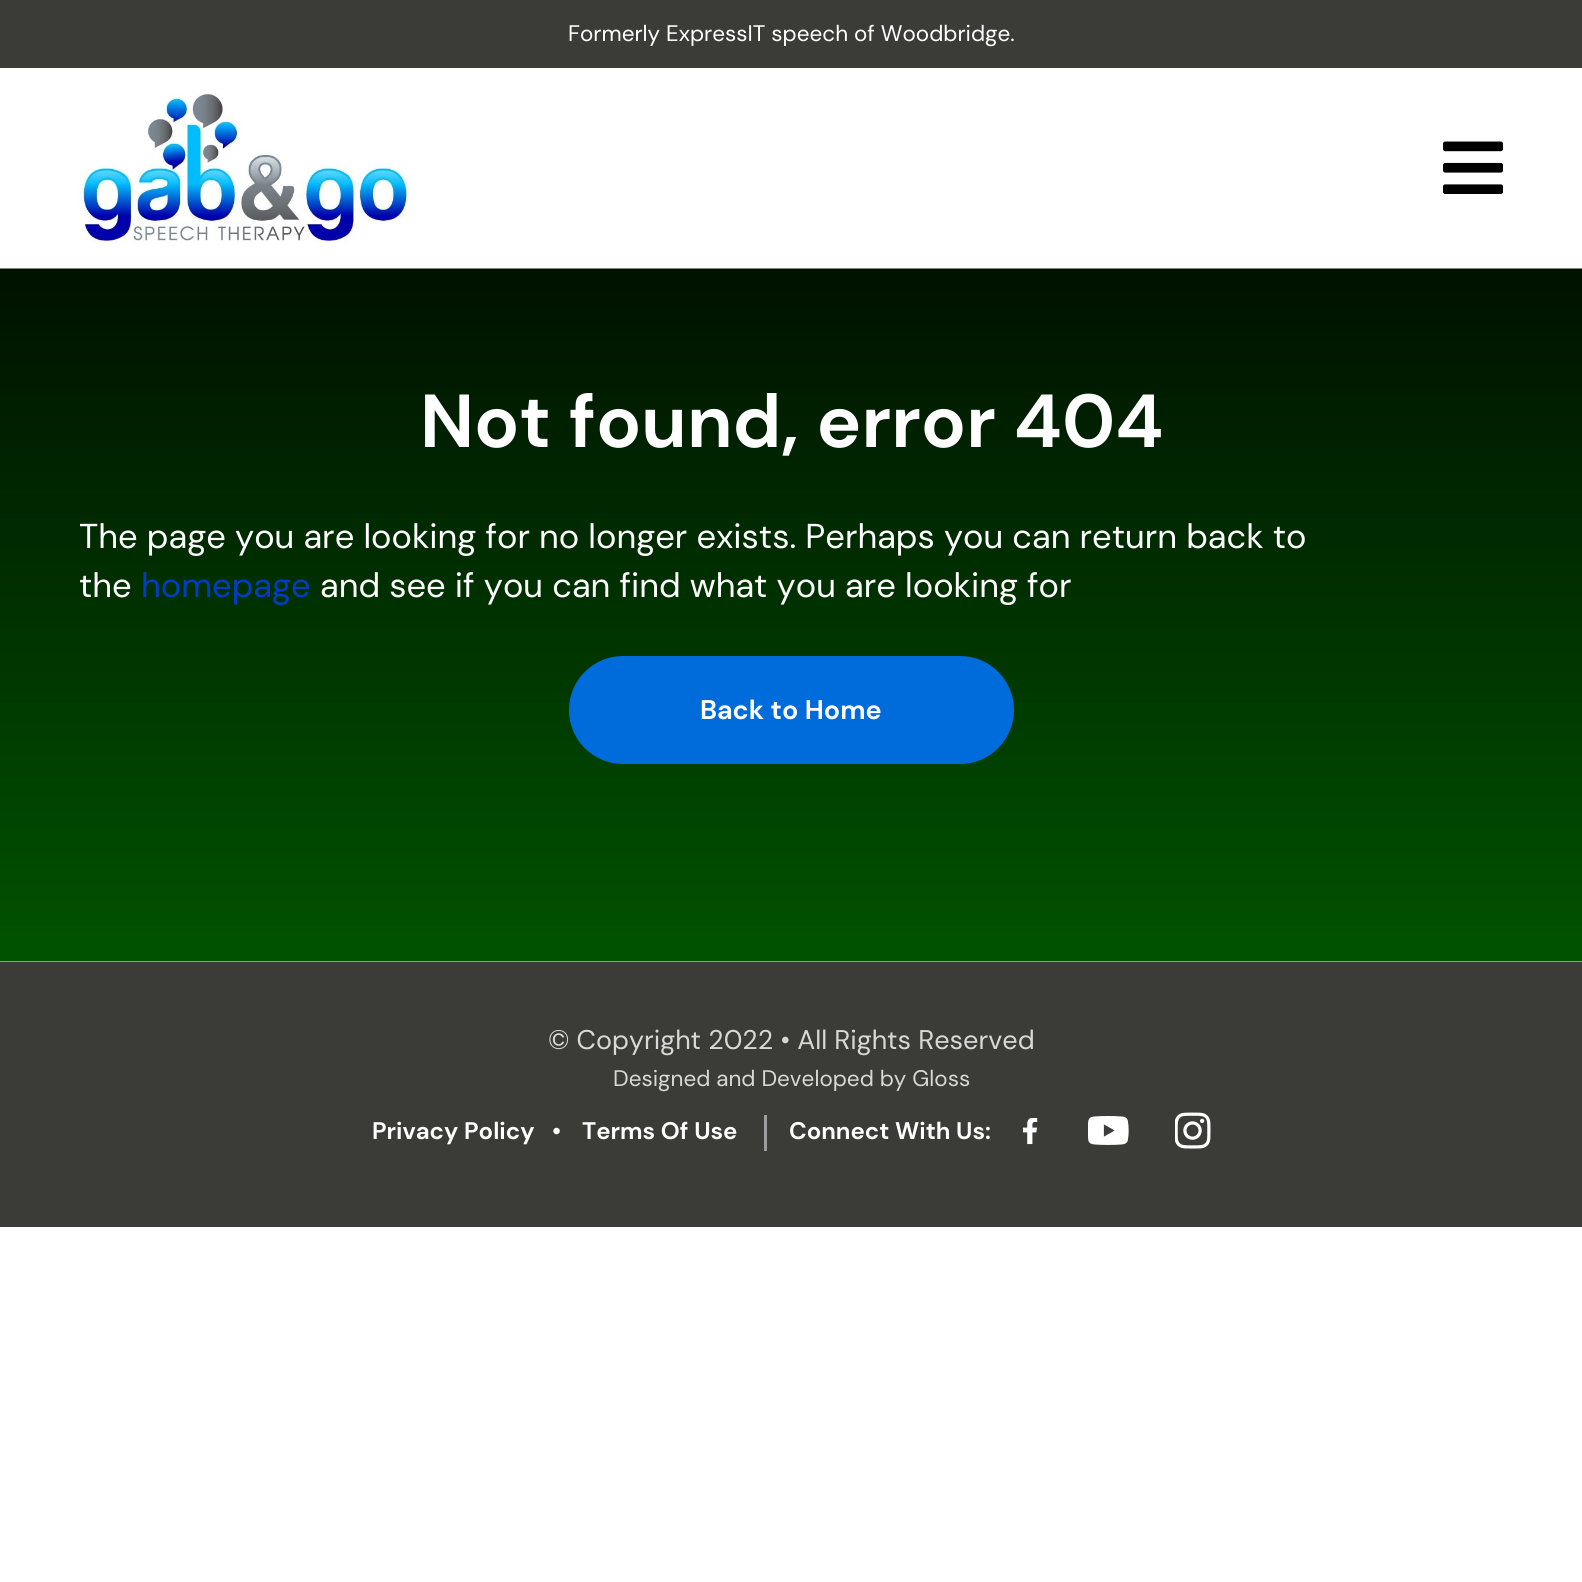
#include <cairo.h>
#include <math.h>
#include <stddef.h>

typedef struct { const char *family; double size; int italic, bold; unsigned color; } style_t;
static cairo_t *ctx;

static void ink(unsigned color) {
    cairo_set_source_rgb(ctx, (color >> 16) / 255.0, (color >> 8 & 255) / 255.0, (color & 255) / 255.0);
}

static void write(double x, double y, const char *s, const style_t *st) {
    cairo_select_font_face(ctx, st->family, st->italic ? CAIRO_FONT_SLANT_ITALIC : CAIRO_FONT_SLANT_NORMAL,
        st->bold ? CAIRO_FONT_WEIGHT_BOLD : CAIRO_FONT_WEIGHT_NORMAL);
    cairo_set_font_size(ctx, st->size);
    ink(st->color);
    cairo_move_to(ctx, x, y);
    cairo_show_text(ctx, s);
}

static void block(double x, double y, double w, double h, unsigned color) {
    ink(color);
    cairo_rectangle(ctx, x, y, w, h);
    cairo_fill(ctx);
}

static void round_path(double x, double y, double w, double h, double r) {
    cairo_new_sub_path(ctx);
    cairo_arc(ctx, x + w - r, y + h - r, r, 0, M_PI / 2);
    cairo_arc(ctx, x + r, y + h - r, r, M_PI / 2, M_PI);
    cairo_arc(ctx, x + r, y + r, r, M_PI, 1.5 * M_PI);
    cairo_arc(ctx, x + w - r, y + r, r, 1.5 * M_PI, 2 * M_PI);
    cairo_close_path(ctx);
}

static void paste(const char *path, double x, double y, double w, double h) {
    cairo_surface_t *image = cairo_image_surface_create_from_png(path);
    cairo_save(ctx);
    cairo_set_source_surface(ctx, image, x, y);
    cairo_rectangle(ctx, x, y, w, h);
    cairo_fill(ctx);
    cairo_restore(ctx);
    cairo_surface_destroy(image);
}

static const style_t s1 = {"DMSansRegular", 22.5, 0, 0, 0xffffff};
static const style_t s2 = {"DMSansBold", 75, 0, 1, 0xffffff};
static const style_t s3 = {"DMSansRegular", 34.5, 0, 0, 0xffffff};
static const style_t s4 = {"DMSansRegular", 34.5, 0, 0, 0x003dc6};
static const style_t s5 = {"DMSansBold", 27, 0, 1, 0xffffff};
static const style_t s6 = {"DMSansRegular", 27, 0, 0, 0xd8d8d7};
static const style_t s7 = {"DMSansRegular", 22.5, 0, 0, 0xd8d8d7};
static const style_t s8 = {"DMSansBold", 24, 0, 1, 0xffffff};

int main(void) {
    cairo_surface_t *surface = cairo_image_surface_create(CAIRO_FORMAT_RGB24, 1582, 1582);
    ctx = cairo_create(surface);
    cairo_font_options_t *options = cairo_font_options_create();
    cairo_font_options_set_hint_metrics(options, CAIRO_HINT_METRICS_OFF);
    cairo_font_options_set_hint_style(options, CAIRO_HINT_STYLE_NONE);
    cairo_set_font_options(ctx, options);
    cairo_set_miter_limit(ctx, 4);
    ink(0xffffff);
    cairo_paint(ctx);
    block(0, 0, 1582, 68, 0x3b3c37);
    write(568, 41, "Formerly ExpressIT speech of Woodbridge.", &s1);
    paste("pic1.png", 79, 92, 331, 151);
    paste("pic2.png", 1443, 141, 60, 53);
    paste("pic3.png", 0, 268, 1582, 694);
    write(420, 447, "Not found, error 404", &s2);
    write(79, 548, "The page you are looking for no longer exists. Perhaps you can return back to", &s3);
    write(79, 597, "the", &s3);
    write(141, 597, "homepage", &s4);
    write(320, 597, "and see if you can find what you are looking for", &s3);
    ink(0x006cdb);
    round_path(569, 656, 445, 108, 54);
    cairo_fill(ctx);
    write(700, 719, "Back to Home", &s5);
    block(0, 962, 1582, 265, 0x3b3c37);
    write(548, 1049, "© Copyright 2022 • All Rights Reserved", &s6);
    write(613, 1086, "Designed and Developed by Gloss", &s7);
    write(372, 1139, "Privacy Policy", &s8);
    write(552, 1139, "•", &s8);
    write(582, 1139, "Terms Of Use", &s8);
    block(764, 1115, 3, 36, 0x9d9d9d);
    write(789, 1139, "Connect With Us:", &s8);
    paste("pic4.png", 1023, 1118, 15, 27);
    paste("pic5.png", 1088, 1116, 41, 29);
    paste("pic6.png", 1175, 1112, 36, 37);
    cairo_surface_write_to_png(surface, "screenshot.png");
    cairo_font_options_destroy(options);
    cairo_destroy(ctx);
    cairo_surface_destroy(surface);
    return 0;
}
